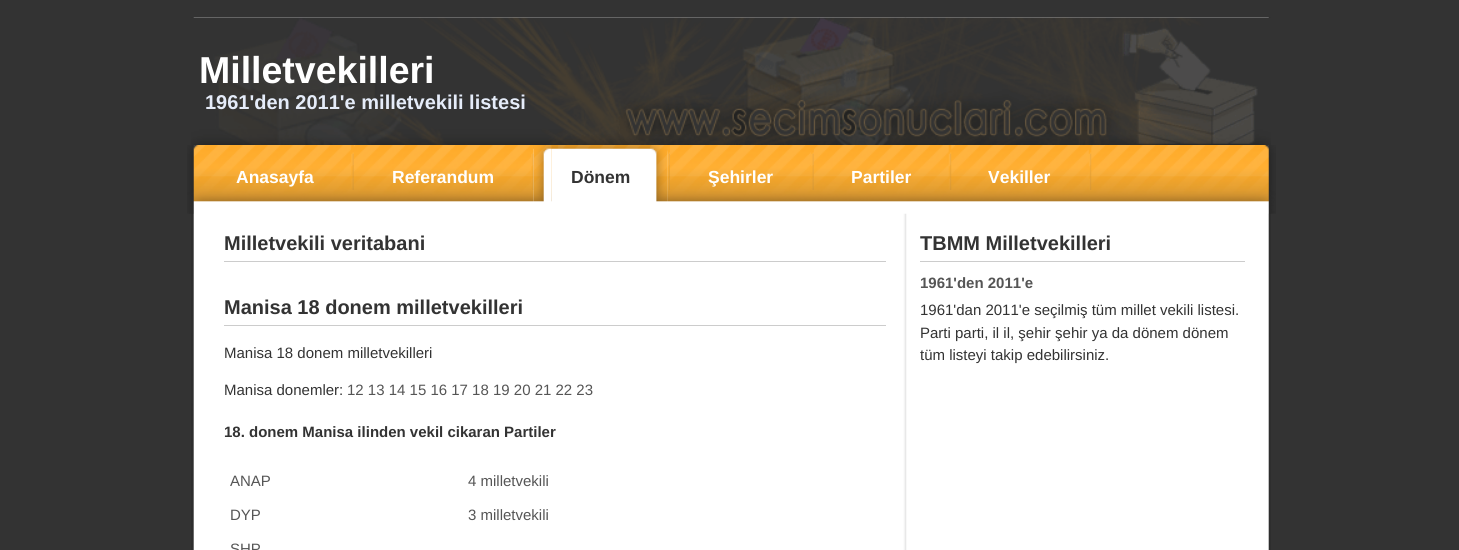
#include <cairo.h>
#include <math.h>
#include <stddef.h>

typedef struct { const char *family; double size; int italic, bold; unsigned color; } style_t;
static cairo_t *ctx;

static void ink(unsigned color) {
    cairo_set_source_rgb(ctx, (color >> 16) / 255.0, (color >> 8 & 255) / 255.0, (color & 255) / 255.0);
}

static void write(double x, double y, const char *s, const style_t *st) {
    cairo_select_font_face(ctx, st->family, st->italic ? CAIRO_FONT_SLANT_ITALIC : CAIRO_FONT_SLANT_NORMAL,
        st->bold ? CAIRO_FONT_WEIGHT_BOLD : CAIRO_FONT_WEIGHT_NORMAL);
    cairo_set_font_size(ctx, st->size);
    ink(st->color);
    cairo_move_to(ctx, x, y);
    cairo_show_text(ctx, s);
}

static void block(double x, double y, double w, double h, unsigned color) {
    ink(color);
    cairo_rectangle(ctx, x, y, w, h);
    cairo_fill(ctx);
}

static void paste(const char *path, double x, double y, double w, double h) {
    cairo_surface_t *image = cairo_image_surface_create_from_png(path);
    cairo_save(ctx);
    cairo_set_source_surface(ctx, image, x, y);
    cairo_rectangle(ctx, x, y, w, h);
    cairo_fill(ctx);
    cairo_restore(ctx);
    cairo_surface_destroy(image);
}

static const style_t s1 = {"Liberation Sans", 37.5, 0, 1, 0xffffff};
static const style_t s2 = {"Liberation Sans", 20, 0, 1, 0xe5ecf9};
static const style_t s3 = {"Liberation Sans", 17.5, 0, 1, 0xffffff};
static const style_t s4 = {"Liberation Sans", 17.5, 0, 1, 0x333333};
static const style_t s5 = {"Liberation Sans", 20, 0, 1, 0x333333};
static const style_t s6 = {"Liberation Sans", 15, 0, 0, 0x333333};
static const style_t s7 = {"Liberation Sans", 15, 0, 0, 0x555555};
static const style_t s8 = {"Liberation Sans", 15, 0, 1, 0x333333};
static const style_t s9 = {"Liberation Sans", 15, 0, 1, 0x555555};

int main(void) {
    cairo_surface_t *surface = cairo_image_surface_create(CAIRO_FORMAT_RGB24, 1459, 550);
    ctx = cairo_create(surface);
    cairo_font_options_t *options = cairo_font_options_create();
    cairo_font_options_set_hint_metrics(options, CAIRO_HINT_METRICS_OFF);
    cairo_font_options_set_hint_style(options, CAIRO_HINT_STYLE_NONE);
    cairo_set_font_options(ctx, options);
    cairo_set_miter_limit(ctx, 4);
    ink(0x333333);
    cairo_paint(ctx);
    paste("pic1.png", 191, 17, 1080, 533);
    paste("pic2.png", 191, 17, 1080, 128);
    write(199, 83, "Milletvekilleri", &s1);
    write(205, 109, "1961'den 2011'e milletvekili listesi", &s2);
    paste("pic3.png", 187, 145, 1089, 69);
    write(236, 183, "Anasayfa", &s3);
    paste("pic4.png", 351, 145, 3, 45);
    write(392, 183, "Referandum", &s3);
    paste("pic5.png", 531, 152, 3, 38);
    paste("pic6.png", 533, 145, 135, 57);
    paste("pic7.png", 551, 145, 117, 57);
    write(571, 183, "Dönem", &s4);
    paste("pic8.png", 667, 145, 3, 57);
    write(708, 183, "Şehirler", &s3);
    paste("pic9.png", 811, 149, 3, 41);
    write(851, 183, "Partiler", &s3);
    paste("pic10.png", 948, 145, 4, 45);
    write(988, 183, "Vekiller", &s3);
    paste("pic11.png", 1088, 147, 4, 43);
    block(224, 261, 662, 1, 0xcccccc);
    write(224, 250, "Milletvekili veritabani", &s5);
    block(224, 325, 662, 1, 0xcccccc);
    write(224, 314, "Manisa 18 donem milletvekilleri", &s5);
    write(224, 358, "Manisa 18 donem milletvekilleri", &s6);
    write(224, 395, "Manisa donemler:", &s6);
    write(347, 395, "12 13 14 15 16 17 18 19 20 21 22 23", &s7);
    write(224, 437, "18. donem Manisa ilinden vekil cikaran Partiler", &s8);
    write(230, 486, "ANAP", &s7);
    write(468, 486, "4 milletvekili", &s7);
    write(230, 520, "DYP", &s7);
    write(468, 520, "3 milletvekili", &s7);
    write(230, 554, "SHP", &s7);
    block(920, 261, 325, 1, 0xcccccc);
    write(920, 250, "TBMM Milletvekilleri", &s5);
    write(920, 288, "1961'den 2011'e", &s9);
    write(920, 315, "1961'dan 2011'e seçilmiş tüm millet vekili listesi.", &s6);
    write(920, 338, "Parti parti, il il, şehir şehir ya da dönem dönem", &s6);
    write(920, 360, "tüm listeyi takip edebilirsiniz.", &s6);
    cairo_surface_write_to_png(surface, "screenshot.png");
    cairo_font_options_destroy(options);
    cairo_destroy(ctx);
    cairo_surface_destroy(surface);
    return 0;
}
